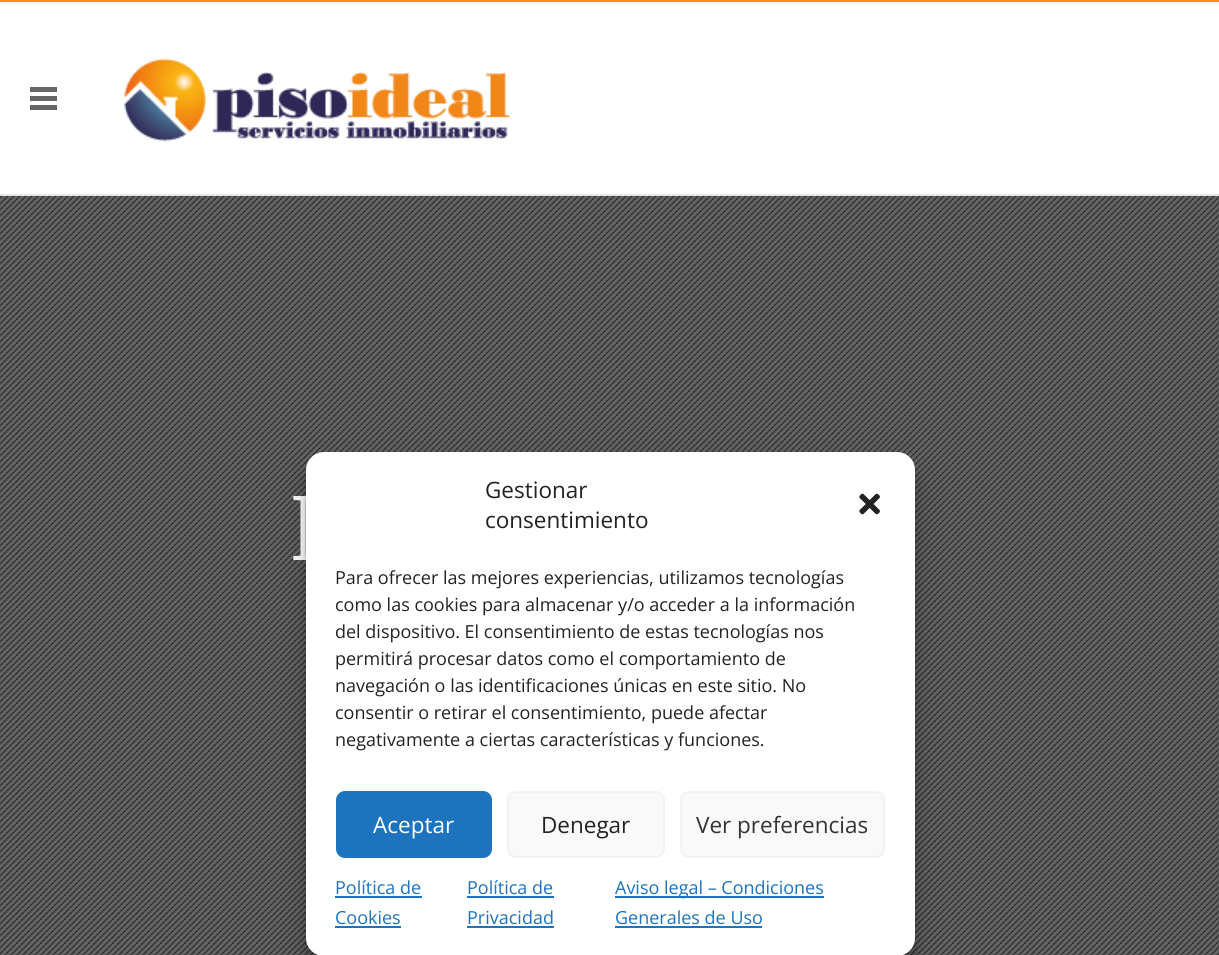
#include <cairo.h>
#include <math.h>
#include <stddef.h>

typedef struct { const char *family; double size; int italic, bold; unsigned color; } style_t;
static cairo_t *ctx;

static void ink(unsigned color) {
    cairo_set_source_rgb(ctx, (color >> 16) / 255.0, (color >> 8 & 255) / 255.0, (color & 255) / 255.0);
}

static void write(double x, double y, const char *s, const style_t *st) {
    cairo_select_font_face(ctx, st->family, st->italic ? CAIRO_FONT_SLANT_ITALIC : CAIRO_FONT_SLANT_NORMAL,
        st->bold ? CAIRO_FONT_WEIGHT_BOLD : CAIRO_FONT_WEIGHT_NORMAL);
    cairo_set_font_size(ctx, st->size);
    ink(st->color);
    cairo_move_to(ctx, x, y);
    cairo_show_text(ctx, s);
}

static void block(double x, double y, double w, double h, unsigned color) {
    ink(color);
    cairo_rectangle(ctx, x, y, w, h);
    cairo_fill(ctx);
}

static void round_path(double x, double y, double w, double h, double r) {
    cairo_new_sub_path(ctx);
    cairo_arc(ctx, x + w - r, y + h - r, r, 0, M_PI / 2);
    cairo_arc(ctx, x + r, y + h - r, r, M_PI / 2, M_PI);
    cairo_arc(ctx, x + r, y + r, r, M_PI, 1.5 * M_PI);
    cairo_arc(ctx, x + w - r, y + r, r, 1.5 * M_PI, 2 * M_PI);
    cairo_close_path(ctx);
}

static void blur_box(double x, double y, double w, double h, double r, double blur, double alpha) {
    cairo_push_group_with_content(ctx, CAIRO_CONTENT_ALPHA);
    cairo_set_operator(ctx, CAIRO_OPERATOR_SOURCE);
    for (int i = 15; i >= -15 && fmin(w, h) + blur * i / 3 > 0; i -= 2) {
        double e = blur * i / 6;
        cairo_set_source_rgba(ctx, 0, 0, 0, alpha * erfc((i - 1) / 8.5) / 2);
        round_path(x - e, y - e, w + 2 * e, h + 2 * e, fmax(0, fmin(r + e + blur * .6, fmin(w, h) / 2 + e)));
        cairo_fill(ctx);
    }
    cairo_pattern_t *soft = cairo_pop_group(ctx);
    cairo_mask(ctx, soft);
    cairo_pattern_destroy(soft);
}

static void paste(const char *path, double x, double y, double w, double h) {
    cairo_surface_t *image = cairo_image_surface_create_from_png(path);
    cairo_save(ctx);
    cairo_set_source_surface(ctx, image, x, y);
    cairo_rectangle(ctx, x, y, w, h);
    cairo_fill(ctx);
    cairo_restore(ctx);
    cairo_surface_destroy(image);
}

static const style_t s1 = {"Roboto Slab Light", 90, 0, 0, 0xffffff};
static const style_t s2 = {"Open Sans", 22.5, 0, 0, 0x222222};
static const style_t s3 = {"Open Sans", 18, 0, 0, 0x222222};
static const style_t s4 = {"Open Sans", 22.5, 0, 0, 0xffffff};
static const style_t s5 = {"Open Sans", 22.5, 0, 0, 0x333333};
static const style_t s6 = {"Open Sans", 18, 0, 0, 0x1e73be};

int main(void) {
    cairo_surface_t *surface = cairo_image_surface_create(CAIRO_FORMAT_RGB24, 1219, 955);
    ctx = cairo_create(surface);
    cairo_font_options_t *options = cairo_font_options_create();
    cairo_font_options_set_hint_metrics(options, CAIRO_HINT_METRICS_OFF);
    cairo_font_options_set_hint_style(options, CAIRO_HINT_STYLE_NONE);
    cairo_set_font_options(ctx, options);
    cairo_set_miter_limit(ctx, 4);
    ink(0xffffff);
    cairo_paint(ctx);
    block(0, 196, 1219, 759, 0x666666);
    block(0, 0, 1219, 2, 0xf39412);
    block(0, 194, 1219, 2, 0xe6e6e6);
    block(30, 87, 27, 5, 0x666666);
    block(30, 96, 27, 5, 0x666666);
    block(30, 105, 27, 5, 0x666666);
    paste("pic1.png", 124, 58, 387, 84);
    paste("pic2.png", 0, 196, 1219, 759);
    write(290, 560, "L", &s1);
    ink(0x000000);
    blur_box(306, 461, 609, 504, 18, 4.5, 0.23);
    blur_box(306, 467, 609, 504, 18, 15, 0.19);
    ink(0xffffff);
    round_path(306, 452, 609, 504, 18);
    cairo_fill(ctx);
    write(485, 498, "Gestionar", &s2);
    write(485, 528, "consentimiento", &s2);
    paste("pic3.png", 859, 493, 21, 22);
    write(335, 584, "Para ofrecer las mejores experiencias, utilizamos tecnologías", &s3);
    write(335, 611, "como las cookies para almacenar y/o acceder a la información", &s3);
    write(335, 638, "del dispositivo. El consentimiento de estas tecnologías nos", &s3);
    write(335, 665, "permitirá procesar datos como el comportamiento de", &s3);
    write(335, 692, "navegación o las identificaciones únicas en este sitio. No", &s3);
    write(335, 719, "consentir o retirar el consentimiento, puede afectar", &s3);
    write(335, 746, "negativamente a ciertas características y funciones.", &s3);
    ink(0x1e73be);
    round_path(337, 792, 154, 65, 8);
    cairo_fill_preserve(ctx);
    cairo_stroke(ctx);
    write(373, 833, "Aceptar", &s4);
    ink(0xf9f9f9);
    round_path(508, 792, 156, 65, 8);
    cairo_fill_preserve(ctx);
    ink(0xf2f2f2);
    cairo_stroke(ctx);
    write(541, 833, "Denegar", &s2);
    ink(0xf9f9f9);
    round_path(681, 792, 203, 65, 8);
    cairo_fill_preserve(ctx);
    ink(0xf2f2f2);
    cairo_stroke(ctx);
    write(696, 833, "Ver preferencias", &s5);
    write(335, 894, "Política de", &s6);
    block(335, 896, 87, 2, 0x1e73be);
    write(335, 924, "Cookies", &s6);
    block(335, 926, 66, 2, 0x1e73be);
    write(467, 894, "Política de", &s6);
    block(467, 896, 87, 2, 0x1e73be);
    write(467, 924, "Privacidad", &s6);
    block(467, 926, 87, 2, 0x1e73be);
    block(615, 896, 209, 2, 0x1e73be);
    write(615, 894, "Aviso legal – Condiciones", &s6);
    write(615, 924, "Generales de Uso", &s6);
    block(615, 926, 147, 2, 0x1e73be);
    cairo_surface_write_to_png(surface, "screenshot.png");
    cairo_font_options_destroy(options);
    cairo_destroy(ctx);
    cairo_surface_destroy(surface);
    return 0;
}
